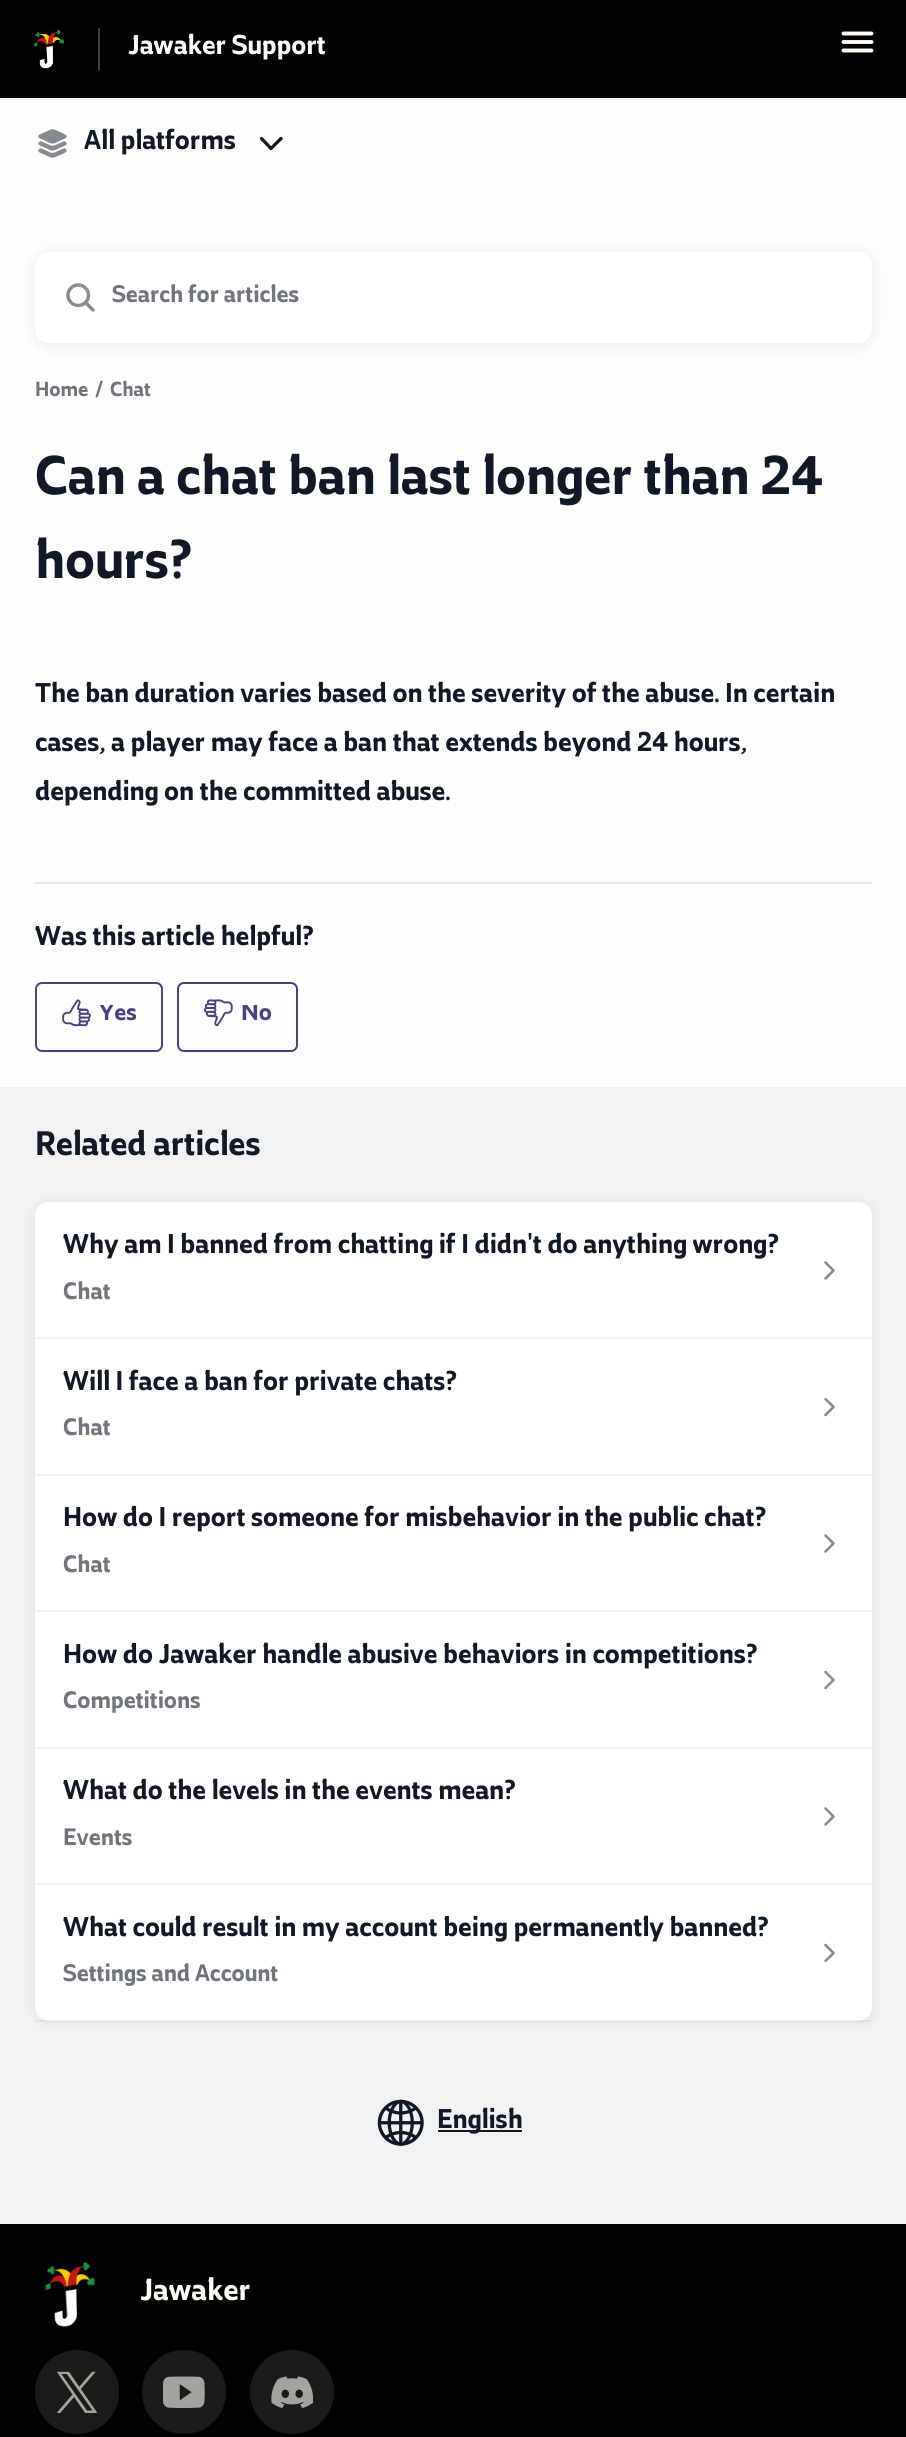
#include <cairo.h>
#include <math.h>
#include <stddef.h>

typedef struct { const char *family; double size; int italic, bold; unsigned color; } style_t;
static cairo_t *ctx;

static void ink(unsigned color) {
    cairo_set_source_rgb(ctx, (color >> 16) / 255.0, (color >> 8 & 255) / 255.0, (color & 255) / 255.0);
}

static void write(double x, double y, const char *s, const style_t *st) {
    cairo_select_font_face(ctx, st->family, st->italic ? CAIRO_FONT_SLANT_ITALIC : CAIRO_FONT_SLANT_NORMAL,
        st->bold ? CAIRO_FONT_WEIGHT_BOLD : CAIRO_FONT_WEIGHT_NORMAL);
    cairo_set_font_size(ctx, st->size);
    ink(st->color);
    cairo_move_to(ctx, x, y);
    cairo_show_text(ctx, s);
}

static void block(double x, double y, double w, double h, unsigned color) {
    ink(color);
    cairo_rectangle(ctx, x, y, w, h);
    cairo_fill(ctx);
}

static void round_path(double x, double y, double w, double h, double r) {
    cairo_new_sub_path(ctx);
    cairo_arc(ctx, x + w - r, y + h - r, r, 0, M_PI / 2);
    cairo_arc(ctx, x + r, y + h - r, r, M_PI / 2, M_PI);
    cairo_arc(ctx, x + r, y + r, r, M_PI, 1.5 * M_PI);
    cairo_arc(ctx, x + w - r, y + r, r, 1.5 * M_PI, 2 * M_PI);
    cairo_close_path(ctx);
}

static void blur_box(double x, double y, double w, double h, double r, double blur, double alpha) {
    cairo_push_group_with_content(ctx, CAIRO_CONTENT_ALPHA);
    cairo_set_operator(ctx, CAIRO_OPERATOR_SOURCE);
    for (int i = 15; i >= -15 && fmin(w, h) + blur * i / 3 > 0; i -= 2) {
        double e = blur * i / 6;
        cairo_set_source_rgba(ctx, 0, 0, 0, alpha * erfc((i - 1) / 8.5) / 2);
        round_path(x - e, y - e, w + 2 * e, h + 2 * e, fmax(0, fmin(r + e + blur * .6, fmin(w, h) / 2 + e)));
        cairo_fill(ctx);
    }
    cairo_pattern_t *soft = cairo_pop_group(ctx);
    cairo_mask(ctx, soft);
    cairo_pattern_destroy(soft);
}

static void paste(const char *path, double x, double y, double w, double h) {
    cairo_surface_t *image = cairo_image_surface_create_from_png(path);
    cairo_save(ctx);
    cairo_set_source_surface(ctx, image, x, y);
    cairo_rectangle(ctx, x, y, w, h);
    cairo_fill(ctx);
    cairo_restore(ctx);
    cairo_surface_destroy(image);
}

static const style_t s1 = {"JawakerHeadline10", 28, 0, 1, 0xfffbf4};
static const style_t s2 = {"JawakerHeadline10", 28, 0, 1, 0x111827};
static const style_t s3 = {"JawakerHeadline10", 24.5, 0, 1, 0x70747d};
static const style_t s4 = {"JawakerHeadline10", 21, 0, 1, 0x70747d};
static const style_t s5 = {"JawakerHeadline10", 56, 0, 1, 0x111827};
static const style_t s6 = {"JawakerHeadline10", 24.5, 0, 1, 0x4f3f80};
static const style_t s7 = {"JawakerHeadline10", 35, 0, 1, 0x111827};
static const style_t s8 = {"JawakerHeadline10", 31.5, 0, 1, 0xfffbf4};

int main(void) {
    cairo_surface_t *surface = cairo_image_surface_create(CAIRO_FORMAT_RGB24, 906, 2437);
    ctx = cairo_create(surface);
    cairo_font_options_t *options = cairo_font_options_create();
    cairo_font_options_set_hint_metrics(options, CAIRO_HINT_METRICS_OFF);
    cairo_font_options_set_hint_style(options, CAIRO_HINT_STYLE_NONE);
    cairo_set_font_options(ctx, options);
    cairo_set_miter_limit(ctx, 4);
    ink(0xfdfdfd);
    cairo_paint(ctx);
    block(0, 0, 906, 98, 0x020202);
    block(98, 28, 2, 42, 0x41403f);
    paste("pic1.png", 34, 29, 30, 40);
    write(128, 54, "Jawaker Support", &s1);
    cairo_new_path(ctx);
    cairo_move_to(ctx, 843.5, 33.5);
    cairo_line_to(ctx, 871.5, 33.5);
    cairo_move_to(ctx, 843.5, 42);
    cairo_line_to(ctx, 871.5, 42);
    cairo_move_to(ctx, 843.5, 50.5);
    cairo_line_to(ctx, 871.5, 50.5);
    cairo_set_line_width(ctx, 3.9);
    cairo_set_line_cap(ctx, CAIRO_LINE_CAP_ROUND);
    cairo_stroke(ctx);
    paste("pic2.png", 38, 129, 29, 29);
    write(84, 149, "All platforms", &s2);
    cairo_new_path(ctx);
    cairo_move_to(ctx, 261.5, 138.5);
    cairo_line_to(ctx, 271, 148.5);
    cairo_line_to(ctx, 281, 138.5);
    cairo_set_line_width(ctx, 3.3);
    cairo_set_line_join(ctx, CAIRO_LINE_JOIN_ROUND);
    cairo_stroke(ctx);
    block(0, 1087, 906, 1137, 0xf0f2f4);
    ink(0x000000);
    blur_box(35, 254, 837, 91, 14, 7, 0.08);
    ink(0xffffff);
    round_path(35, 252, 837, 91, 14);
    cairo_fill(ctx);
    paste("pic3.png", 66, 283, 29, 29);
    write(112, 302, "Search for articles", &s3);
    write(35, 396, "Home", &s4);
    write(95, 396, "/", &s4);
    write(110, 396, "Chat", &s4);
    write(35, 494, "Can a chat ban last longer than 24", &s5);
    write(35, 578, "hours?", &s5);
    block(35, 882, 837, 2, 0xe7e8e9);
    write(35, 702, "The ban duration varies based on the severity of the abuse. In certain", &s2);
    write(35, 751, "cases, a player may face a ban that extends beyond 24 hours,", &s2);
    write(35, 800, "depending on the committed abuse.", &s2);
    write(35, 945, "Was this article helpful?", &s2);
    round_path(36, 983, 126, 68, 6);
    ink(0x4f3f80);
    cairo_set_line_width(ctx, 2);
    cairo_set_line_cap(ctx, CAIRO_LINE_CAP_BUTT);
    cairo_set_line_join(ctx, CAIRO_LINE_JOIN_MITER);
    cairo_stroke(ctx);
    paste("pic4.png", 62, 999, 29, 28);
    cairo_save(ctx);
    cairo_rectangle(ctx, 100, 1005, 37, 24);
    cairo_clip(ctx);
    write(99, 1020, "Yes", &s6);
    cairo_restore(ctx);
    round_path(178, 983, 119, 68, 6);
    cairo_stroke(ctx);
    paste("pic5.png", 204, 999, 29, 28);
    cairo_save(ctx);
    cairo_rectangle(ctx, 242, 1005, 29, 24);
    cairo_clip(ctx);
    write(241, 1020, "No", &s6);
    cairo_restore(ctx);
    write(35, 1155, "Related articles", &s7);
    ink(0x000000);
    blur_box(35, 1204, 837, 819, 14, 7, 0.08);
    ink(0xffffff);
    round_path(35, 1202, 837, 819, 14);
    cairo_fill(ctx);
    block(35, 1337, 837, 2, 0xf3f3f4);
    write(63, 1253, "Why am I banned from chatting if I didn't do anything wrong?", &s2);
    write(63, 1299, "Chat", &s3);
    cairo_new_path(ctx);
    cairo_move_to(ctx, 825.5, 1262.5);
    cairo_line_to(ctx, 833.5, 1270.5);
    cairo_line_to(ctx, 825.5, 1278.5);
    ink(0x888c93);
    cairo_set_line_width(ctx, 2.6);
    cairo_set_line_cap(ctx, CAIRO_LINE_CAP_ROUND);
    cairo_set_line_join(ctx, CAIRO_LINE_JOIN_ROUND);
    cairo_stroke(ctx);
    block(35, 1474, 837, 2, 0xf3f3f4);
    write(63, 1390, "Will I face a ban for private chats?", &s2);
    write(63, 1435, "Chat", &s3);
    cairo_new_path(ctx);
    cairo_move_to(ctx, 825.5, 1399);
    cairo_line_to(ctx, 833.5, 1407);
    cairo_line_to(ctx, 825.5, 1415);
    ink(0x888c93);
    cairo_stroke(ctx);
    block(35, 1610, 837, 2, 0xf3f3f4);
    write(63, 1526, "How do I report someone for misbehavior in the public chat?", &s2);
    write(63, 1572, "Chat", &s3);
    cairo_new_path(ctx);
    cairo_move_to(ctx, 825.5, 1535.5);
    cairo_line_to(ctx, 833.5, 1543.5);
    cairo_line_to(ctx, 825.5, 1551.5);
    ink(0x888c93);
    cairo_stroke(ctx);
    block(35, 1747, 837, 2, 0xf3f3f4);
    write(63, 1663, "How do Jawaker handle abusive behaviors in competitions?", &s2);
    write(63, 1708, "Competitions", &s3);
    cairo_new_path(ctx);
    cairo_move_to(ctx, 825.5, 1672);
    cairo_line_to(ctx, 833.5, 1680);
    cairo_line_to(ctx, 825.5, 1688);
    ink(0x888c93);
    cairo_stroke(ctx);
    block(35, 1883, 837, 2, 0xf3f3f4);
    write(63, 1799, "What do the levels in the events mean?", &s2);
    write(63, 1845, "Events", &s3);
    cairo_new_path(ctx);
    cairo_move_to(ctx, 825.5, 1808.5);
    cairo_line_to(ctx, 833.5, 1816.5);
    cairo_line_to(ctx, 825.5, 1824.5);
    ink(0x888c93);
    cairo_stroke(ctx);
    cairo_set_source_rgba(ctx, 0.067, 0.094, 0.153, 0.05);
    cairo_rectangle(ctx, 35, 2020, 837, 2);
    cairo_fill(ctx);
    write(63, 1936, "What could result in my account being permanently banned?", &s2);
    write(63, 1981, "Settings and Account", &s3);
    cairo_new_path(ctx);
    cairo_move_to(ctx, 825.5, 1945);
    cairo_line_to(ctx, 833.5, 1953);
    cairo_line_to(ctx, 825.5, 1961);
    ink(0x888c93);
    cairo_stroke(ctx);
    paste("pic6.png", 377, 2099, 47, 47);
    block(438, 2130, 84, 2, 0x111827);
    write(437, 2128, "English", &s2);
    block(0, 2224, 906, 213, 0x020202);
    paste("pic7.png", 45, 2262, 50, 65);
    write(140, 2300, "Jawaker", &s8);
    ink(0x1b1b1a);
    cairo_new_path(ctx);
    cairo_arc(ctx, 77, 2392, 42, 0, 2 * M_PI);
    cairo_fill(ctx);
    paste("pic8.png", 57, 2371, 40, 42);
    cairo_arc(ctx, 184, 2392, 42, 0, 2 * M_PI);
    cairo_fill(ctx);
    paste("pic9.png", 163, 2376, 42, 32);
    cairo_arc(ctx, 292, 2392, 42, 0, 2 * M_PI);
    cairo_fill(ctx);
    paste("pic10.png", 271, 2376, 42, 32);
    cairo_surface_write_to_png(surface, "screenshot.png");
    cairo_font_options_destroy(options);
    cairo_destroy(ctx);
    cairo_surface_destroy(surface);
    return 0;
}
